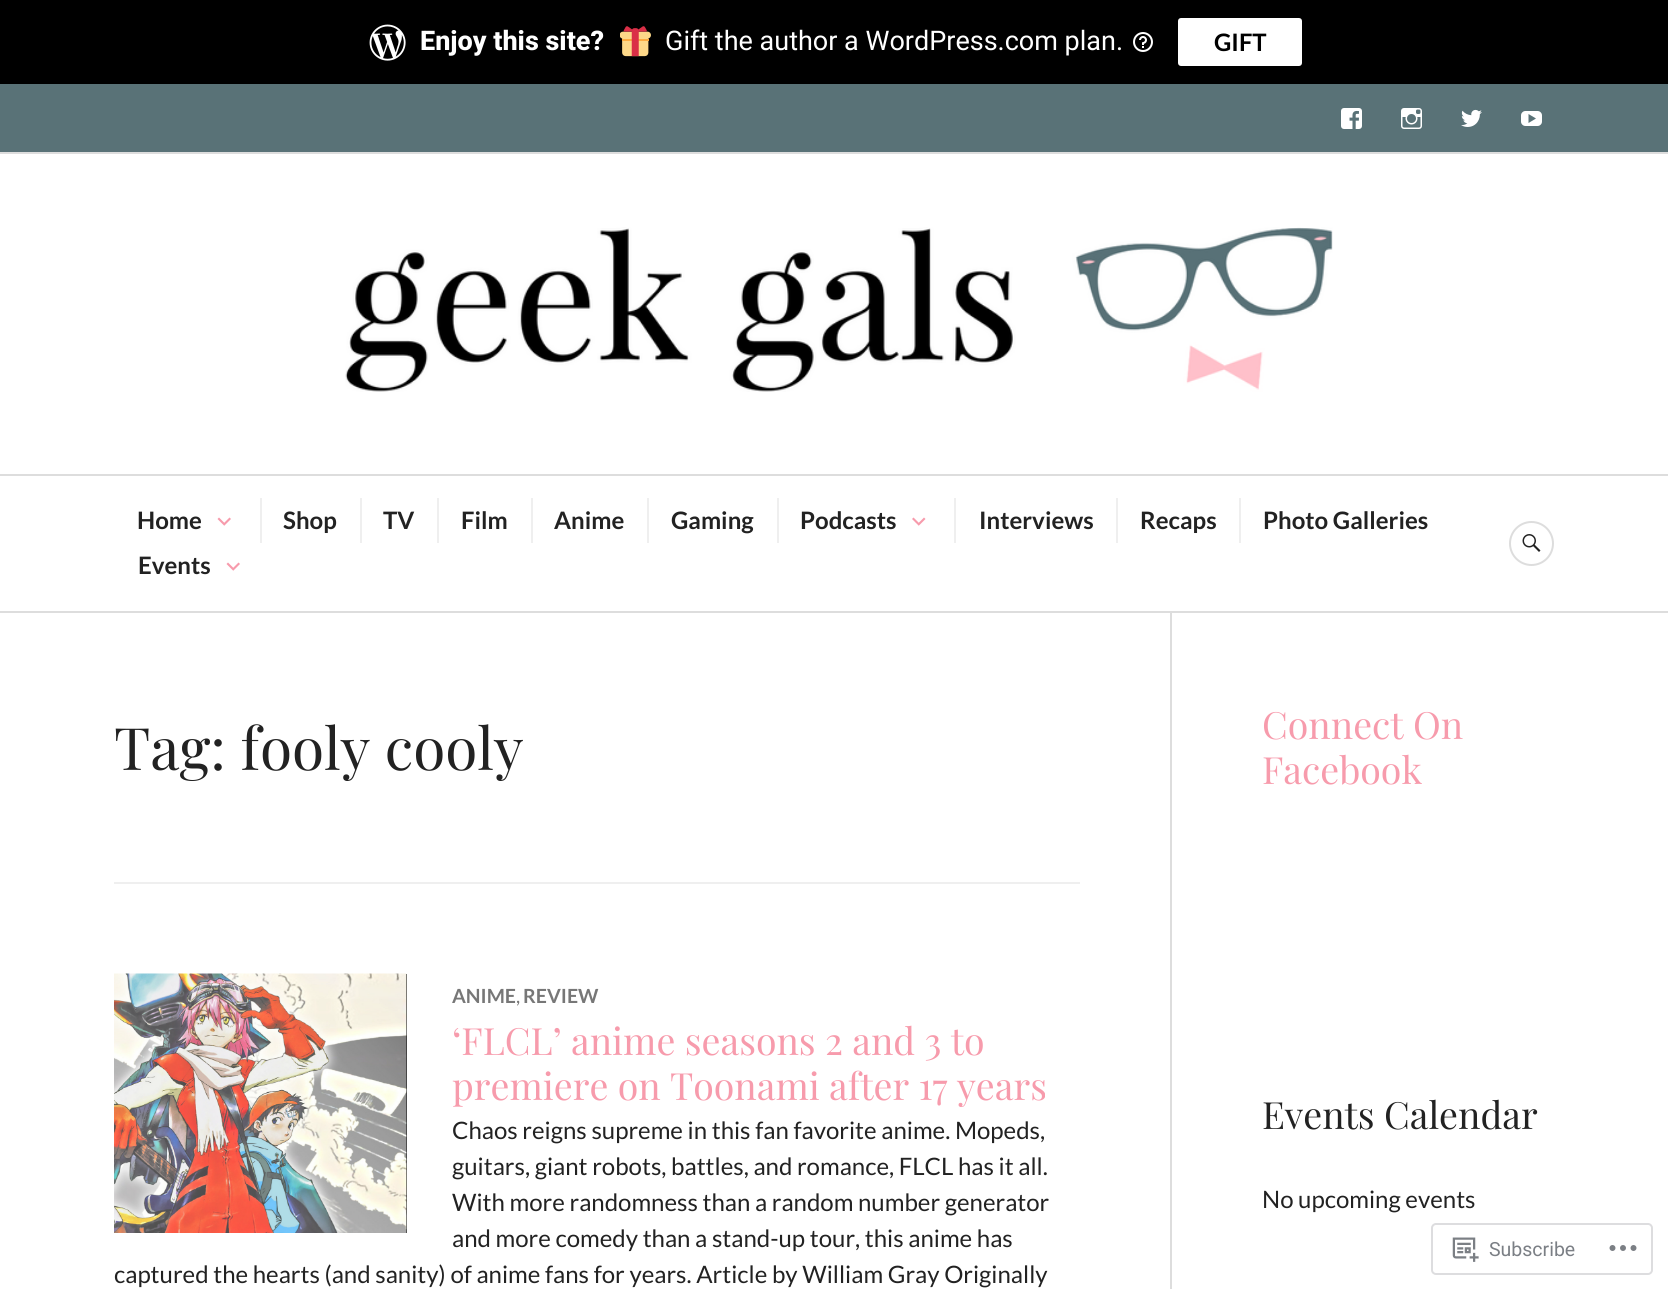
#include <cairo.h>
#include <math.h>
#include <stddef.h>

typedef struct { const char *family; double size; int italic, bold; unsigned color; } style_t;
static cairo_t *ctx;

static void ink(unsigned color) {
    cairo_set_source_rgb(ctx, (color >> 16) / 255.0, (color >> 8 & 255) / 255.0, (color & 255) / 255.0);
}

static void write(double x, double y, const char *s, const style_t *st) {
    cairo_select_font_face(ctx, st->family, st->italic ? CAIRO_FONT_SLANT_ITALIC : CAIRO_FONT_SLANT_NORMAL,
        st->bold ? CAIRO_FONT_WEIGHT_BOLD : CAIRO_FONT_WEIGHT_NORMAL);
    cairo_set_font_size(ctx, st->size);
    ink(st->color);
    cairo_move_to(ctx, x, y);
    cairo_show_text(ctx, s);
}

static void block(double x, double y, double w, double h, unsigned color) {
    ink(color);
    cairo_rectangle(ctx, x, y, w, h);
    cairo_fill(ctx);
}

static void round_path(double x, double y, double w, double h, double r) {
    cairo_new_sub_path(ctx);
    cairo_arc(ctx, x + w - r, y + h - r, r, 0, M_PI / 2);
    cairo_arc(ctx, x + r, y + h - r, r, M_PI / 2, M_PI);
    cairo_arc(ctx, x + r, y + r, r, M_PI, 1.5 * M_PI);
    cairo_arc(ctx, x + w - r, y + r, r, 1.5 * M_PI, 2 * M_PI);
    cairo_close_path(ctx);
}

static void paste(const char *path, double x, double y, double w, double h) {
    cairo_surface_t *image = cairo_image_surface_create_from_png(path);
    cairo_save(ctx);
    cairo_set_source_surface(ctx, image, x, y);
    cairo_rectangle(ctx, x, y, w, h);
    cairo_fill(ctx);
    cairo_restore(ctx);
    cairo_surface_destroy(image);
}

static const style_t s1 = {"Roboto ExtraBold", 27, 0, 0, 0xffffff};
static const style_t s2 = {"Roboto", 27, 0, 0, 0xffffff};
static const style_t s3 = {"Lato", 24, 0, 1, 0x000000};
static const style_t s4 = {"Lato", 24, 0, 1, 0x222222};
static const style_t s5 = {"Playfair Display", 58.5, 0, 0, 0x222222};
static const style_t s6 = {"Lato", 19.5, 0, 1, 0x777777};
static const style_t s7 = {"Lato", 19.5, 0, 0, 0x777777};
static const style_t s8 = {"Playfair Display", 37.5, 0, 0, 0xf79bac};
static const style_t s9 = {"Lato", 24, 0, 0, 0x222222};
static const style_t s10 = {"Playfair Display", 37.5, 0, 0, 0x222222};
static const style_t s11 = {"Roboto", 19.5, 0, 0, 0x7b7f85};

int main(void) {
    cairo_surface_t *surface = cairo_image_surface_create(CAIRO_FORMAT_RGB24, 1668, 1289);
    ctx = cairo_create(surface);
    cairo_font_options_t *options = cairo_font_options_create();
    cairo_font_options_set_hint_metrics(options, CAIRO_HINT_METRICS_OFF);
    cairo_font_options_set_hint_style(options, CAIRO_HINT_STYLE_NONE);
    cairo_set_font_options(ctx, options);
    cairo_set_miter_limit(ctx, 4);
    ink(0xffffff);
    cairo_paint(ctx);
    block(0, 0, 1668, 84, 0x000000);
    paste("pic1.png", 369, 24, 37, 37);
    write(420, 50, "Enjoy this site?", &s1);
    paste("pic2.png", 620, 26, 31, 31);
    write(665, 50, "Gift the author a WordPress.com plan.", &s2);
    paste("pic3.png", 1133, 32, 20, 20);
    round_path(1178, 18, 124, 48, 3);
    cairo_fill(ctx);
    write(1214, 51, "GIFT", &s3);
    block(1170, 612, 2, 677, 0xdddddd);
    block(0, 611, 1668, 2, 0xdddddd);
    block(0, 84, 1668, 68, 0x597277);
    paste("pic4.png", 1341, 108, 21, 21);
    paste("pic5.png", 1401, 108, 21, 21);
    paste("pic6.png", 1461, 109, 21, 18);
    paste("pic7.png", 1521, 111, 21, 15);
    block(0, 152, 1668, 2, 0xdddddd);
    paste("pic8.png", 345, 227, 988, 165);
    block(0, 474, 1668, 2, 0xdddddd);
    write(137, 529, "Home", &s4);
    paste("pic9.png", 217, 517, 14, 9);
    block(260, 498, 2, 45, 0xefefef);
    write(283, 529, "Shop", &s4);
    block(360, 498, 2, 45, 0xefefef);
    write(383, 529, "TV", &s4);
    block(437, 498, 2, 45, 0xefefef);
    write(461, 529, "Film", &s4);
    block(531, 498, 2, 45, 0xefefef);
    write(554, 529, "Anime", &s4);
    block(647, 498, 2, 45, 0xefefef);
    write(671, 529, "Gaming", &s4);
    block(777, 498, 2, 45, 0xefefef);
    write(800, 529, "Podcasts", &s4);
    paste("pic10.png", 912, 517, 14, 9);
    block(954, 498, 2, 45, 0xefefef);
    write(979, 529, "Interviews", &s4);
    block(1116, 498, 2, 45, 0xefefef);
    write(1140, 529, "Recaps", &s4);
    block(1239, 498, 2, 45, 0xefefef);
    write(1263, 529, "Photo Galleries", &s4);
    write(138, 574, "Events", &s4);
    paste("pic9.png", 226, 562, 14, 9);
    cairo_arc(ctx, 1531.5, 543.5, 21.5, 0, 2 * M_PI);
    ink(0xdddddd);
    cairo_stroke(ctx);
    paste("pic11.png", 1522, 534, 19, 18);
    block(114, 882, 966, 2, 0xefefef);
    write(114, 770, "Tag: fooly cooly", &s5);
    block(406, 974, 1, 259, 0x000000);
    paste("pic12.png", 114, 973, 293, 260);
    write(452, 1003, "ANIME", &s6);
    write(516, 1003, ",", &s7);
    write(523, 1003, "REVIEW", &s6);
    write(452, 1055, "‘FLCL’ anime seasons 2 and 3 to", &s8);
    write(452, 1100, "premiere on Toonami after 17 years", &s8);
    write(452, 1139, "Chaos reigns supreme in this fan favorite anime. Mopeds,", &s9);
    write(452, 1175, "guitars, giant robots, battles, and romance, FLCL has it all.", &s9);
    write(452, 1211, "With more randomness than a random number generator", &s9);
    write(452, 1247, "and more comedy than a stand-up tour, this anime has", &s9);
    write(114, 1283, "captured the hearts (and sanity) of anime fans for years. Article by William Gray Originally", &s9);
    write(1262, 739, "Connect On", &s8);
    write(1262, 784, "Facebook", &s8);
    write(1262, 1129, "Events Calendar", &s10);
    write(1262, 1208, "No upcoming events", &s9);
    round_path(1432, 1224, 220, 50, 4);
    ink(0xdddddf);
    cairo_stroke(ctx);
    paste("pic13.png", 1452, 1237, 27, 25);
    write(1489, 1256, "Subscribe", &s11);
    paste("pic14.png", 1609, 1245, 28, 6);
    cairo_surface_write_to_png(surface, "screenshot.png");
    cairo_font_options_destroy(options);
    cairo_destroy(ctx);
    cairo_surface_destroy(surface);
    return 0;
}
